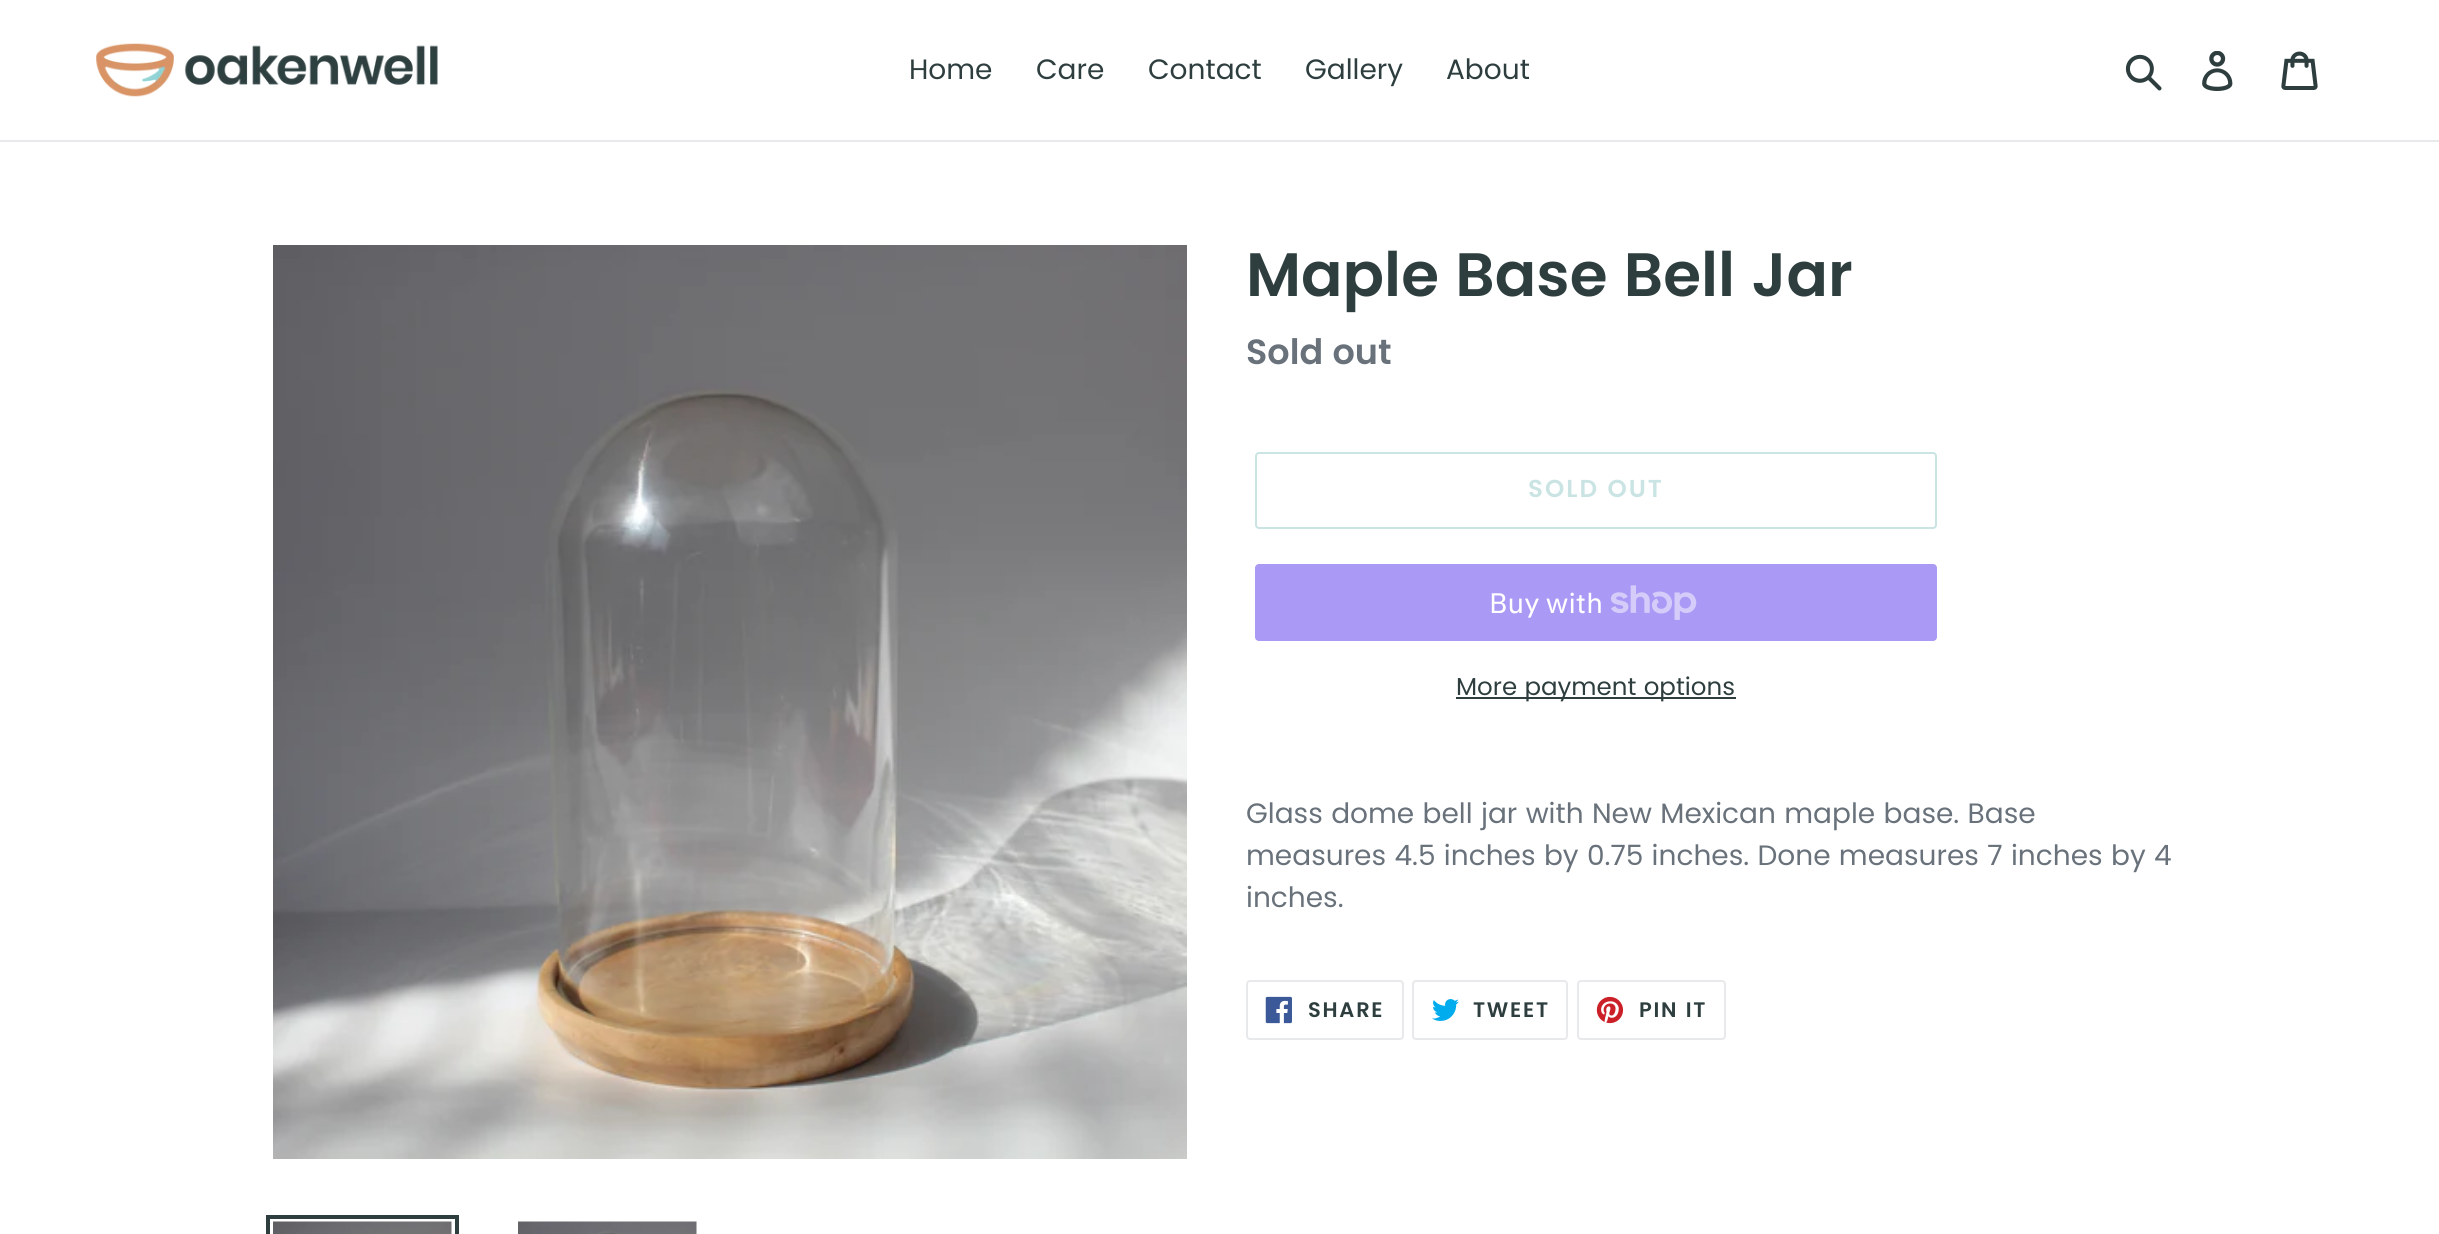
#include <cairo.h>
#include <math.h>
#include <stddef.h>

typedef struct { const char *family; double size; int italic, bold; unsigned color; } style_t;
static cairo_t *ctx;

static void ink(unsigned color) {
    cairo_set_source_rgb(ctx, (color >> 16) / 255.0, (color >> 8 & 255) / 255.0, (color & 255) / 255.0);
}

static void write(double x, double y, const char *s, const style_t *st) {
    cairo_select_font_face(ctx, st->family, st->italic ? CAIRO_FONT_SLANT_ITALIC : CAIRO_FONT_SLANT_NORMAL,
        st->bold ? CAIRO_FONT_WEIGHT_BOLD : CAIRO_FONT_WEIGHT_NORMAL);
    cairo_set_font_size(ctx, st->size);
    ink(st->color);
    cairo_move_to(ctx, x, y);
    cairo_show_text(ctx, s);
}

static void write_spaced(double x, double y, const char *s, double letter, double word) {
    cairo_move_to(ctx, x, y);
    while (*s) {
        char ch[5] = {0};
        int n = 0;
        do ch[n++] = *s++; while ((*s & 0xC0) == 0x80);
        cairo_show_text(ctx, ch);
        cairo_rel_move_to(ctx, letter + word * (*ch == ' '), 0);
    }
}

static void block(double x, double y, double w, double h, unsigned color) {
    ink(color);
    cairo_rectangle(ctx, x, y, w, h);
    cairo_fill(ctx);
}

static void round_path(double x, double y, double w, double h, double r) {
    cairo_new_sub_path(ctx);
    cairo_arc(ctx, x + w - r, y + h - r, r, 0, M_PI / 2);
    cairo_arc(ctx, x + r, y + h - r, r, M_PI / 2, M_PI);
    cairo_arc(ctx, x + r, y + r, r, M_PI, 1.5 * M_PI);
    cairo_arc(ctx, x + w - r, y + r, r, 1.5 * M_PI, 2 * M_PI);
    cairo_close_path(ctx);
}

static void paste(const char *path, double x, double y, double w, double h) {
    cairo_surface_t *image = cairo_image_surface_create_from_png(path);
    cairo_save(ctx);
    cairo_set_source_surface(ctx, image, x, y);
    cairo_rectangle(ctx, x, y, w, h);
    cairo_fill(ctx);
    cairo_restore(ctx);
    cairo_surface_destroy(image);
}

static const style_t s1 = {"Poppins", 28, 0, 0, 0x2e3e3f};
static const style_t s2 = {"Poppins SemiBold", 61.25, 0, 0, 0x2e3e3f};
static const style_t s3 = {"Poppins SemiBold", 35, 0, 0, 0x69727b};
static const style_t s4 = {"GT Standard", 28, 0, 0, 0xffffff};
static const style_t s5 = {"Poppins", 24.5, 0, 0, 0x2e3e3f};
static const style_t s6 = {"Poppins", 28, 0, 0, 0x69727b};

int main(void) {
    cairo_surface_t *surface = cairo_image_surface_create(CAIRO_FORMAT_RGB24, 2439, 1234);
    ctx = cairo_create(surface);
    cairo_font_options_t *options = cairo_font_options_create();
    cairo_font_options_set_hint_metrics(options, CAIRO_HINT_METRICS_OFF);
    cairo_font_options_set_hint_style(options, CAIRO_HINT_STYLE_NONE);
    cairo_set_font_options(ctx, options);
    cairo_set_miter_limit(ctx, 4);
    ink(0xffffff);
    cairo_paint(ctx);
    block(0, 140, 2439, 2, 0xe8e9eb);
    paste("pic1.png", 96, 43, 342, 54);
    write(909, 79, "Home", &s1);
    write(1036, 79, "Care", &s1);
    write(1148, 79, "Contact", &s1);
    write(1305, 79, "Gallery", &s1);
    write(1446, 79, "About", &s1);
    paste("pic2.png", 2125, 54, 37, 37);
    paste("pic3.png", 2202, 51, 31, 40);
    paste("pic4.png", 2281, 51, 37, 39);
    paste("pic5.png", 273, 245, 914, 914);
    cairo_rectangle(ctx, 268, 1217, 189, 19);
    cairo_set_line_width(ctx, 4);
    cairo_stroke(ctx);
    paste("pic6.png", 273, 1221, 179, 13);
    paste("pic7.png", 518, 1221, 179, 13);
    write(1246, 296, "Maple Base Bell Jar", &s2);
    write(1246, 364, "Sold out", &s3);
    round_path(1256, 453, 680, 75, 3);
    ink(0xcae3e3);
    cairo_set_line_width(ctx, 2);
    cairo_stroke(ctx);
    cairo_set_font_size(ctx, 24.5);
    write_spaced(1528, 497, "SOLD OUT", 2, 0);
    ink(0xaa99f5);
    round_path(1255, 564, 682, 77, 4);
    cairo_fill(ctx);
    write(1489, 613, "Buy with", &s4);
    paste("pic8.png", 1611, 585, 86, 35);
    block(1456, 697, 280, 2, 0x2e3e3f);
    write(1456, 695, "More payment options", &s5);
    write(1246, 823, "Glass dome bell jar with New Mexican maple base. Base", &s6);
    write(1246, 865, "measures 4.5 inches by 0.75 inches. Done measures 7 inches by 4", &s6);
    write(1246, 907, "inches.", &s6);
    round_path(1247, 981, 156, 58, 3);
    ink(0xe8e9eb);
    cairo_stroke(ctx);
    paste("pic9.png", 1265, 996, 27, 28);
    cairo_select_font_face(ctx, "Poppins SemiBold", CAIRO_FONT_SLANT_NORMAL, CAIRO_FONT_WEIGHT_NORMAL);
    cairo_set_font_size(ctx, 21);
    ink(0x2e3e3f);
    write_spaced(1308, 1017, "SHARE", 1.75, 0);
    round_path(1413, 981, 154, 58, 3);
    ink(0xe8e9eb);
    cairo_stroke(ctx);
    paste("pic10.png", 1432, 999, 27, 22);
    ink(0x2e3e3f);
    write_spaced(1473, 1017, "TWEET", 1.75, 0);
    round_path(1578, 981, 147, 58, 3);
    ink(0xe8e9eb);
    cairo_stroke(ctx);
    paste("pic11.png", 1596, 996, 28, 28);
    ink(0x2e3e3f);
    write_spaced(1639, 1017, "PIN IT", 1.75, 0);
    cairo_surface_write_to_png(surface, "screenshot.png");
    cairo_font_options_destroy(options);
    cairo_destroy(ctx);
    cairo_surface_destroy(surface);
    return 0;
}
